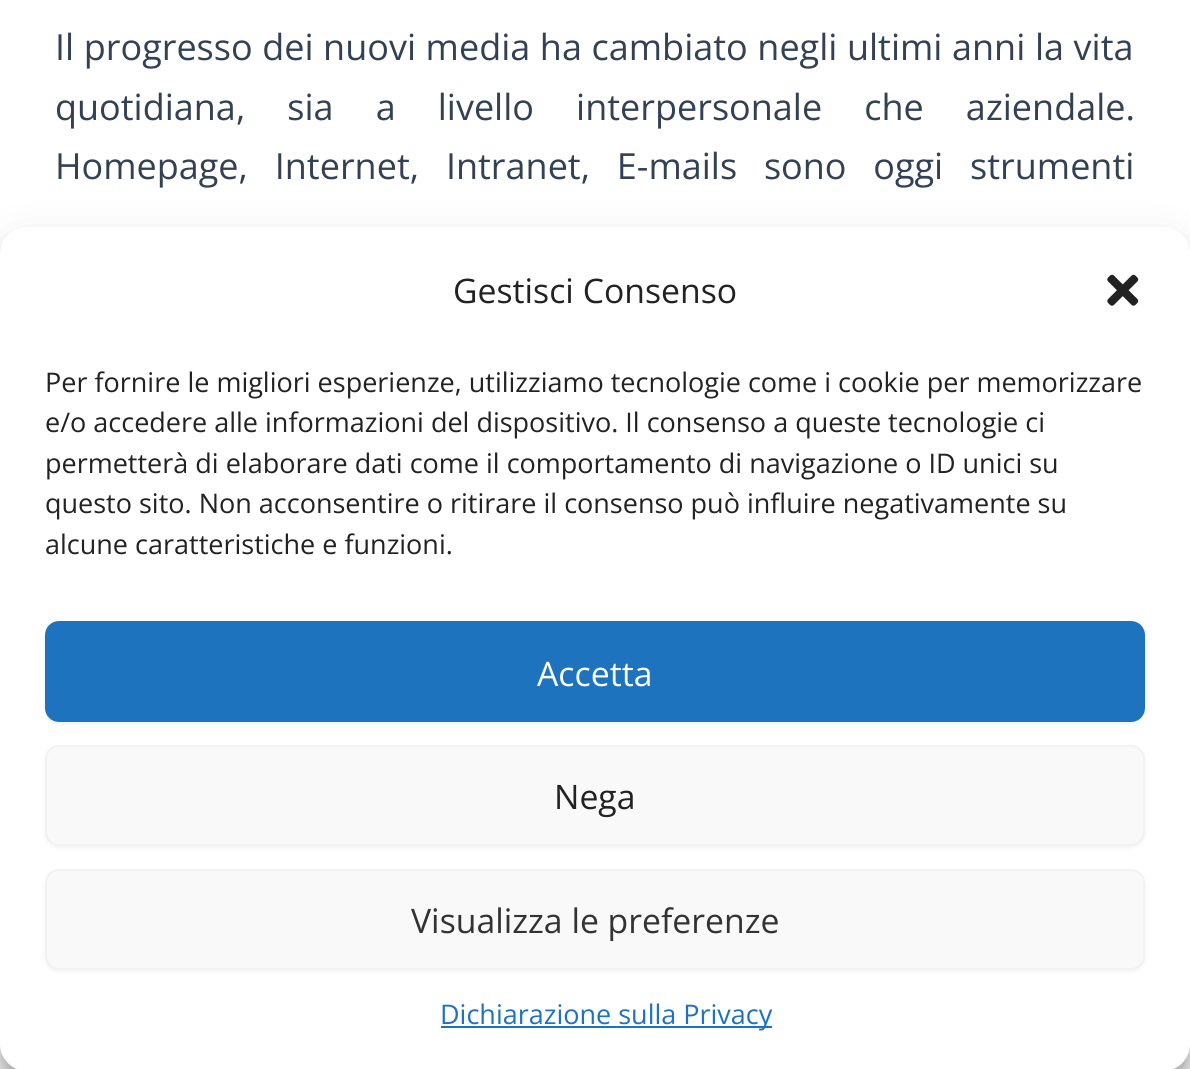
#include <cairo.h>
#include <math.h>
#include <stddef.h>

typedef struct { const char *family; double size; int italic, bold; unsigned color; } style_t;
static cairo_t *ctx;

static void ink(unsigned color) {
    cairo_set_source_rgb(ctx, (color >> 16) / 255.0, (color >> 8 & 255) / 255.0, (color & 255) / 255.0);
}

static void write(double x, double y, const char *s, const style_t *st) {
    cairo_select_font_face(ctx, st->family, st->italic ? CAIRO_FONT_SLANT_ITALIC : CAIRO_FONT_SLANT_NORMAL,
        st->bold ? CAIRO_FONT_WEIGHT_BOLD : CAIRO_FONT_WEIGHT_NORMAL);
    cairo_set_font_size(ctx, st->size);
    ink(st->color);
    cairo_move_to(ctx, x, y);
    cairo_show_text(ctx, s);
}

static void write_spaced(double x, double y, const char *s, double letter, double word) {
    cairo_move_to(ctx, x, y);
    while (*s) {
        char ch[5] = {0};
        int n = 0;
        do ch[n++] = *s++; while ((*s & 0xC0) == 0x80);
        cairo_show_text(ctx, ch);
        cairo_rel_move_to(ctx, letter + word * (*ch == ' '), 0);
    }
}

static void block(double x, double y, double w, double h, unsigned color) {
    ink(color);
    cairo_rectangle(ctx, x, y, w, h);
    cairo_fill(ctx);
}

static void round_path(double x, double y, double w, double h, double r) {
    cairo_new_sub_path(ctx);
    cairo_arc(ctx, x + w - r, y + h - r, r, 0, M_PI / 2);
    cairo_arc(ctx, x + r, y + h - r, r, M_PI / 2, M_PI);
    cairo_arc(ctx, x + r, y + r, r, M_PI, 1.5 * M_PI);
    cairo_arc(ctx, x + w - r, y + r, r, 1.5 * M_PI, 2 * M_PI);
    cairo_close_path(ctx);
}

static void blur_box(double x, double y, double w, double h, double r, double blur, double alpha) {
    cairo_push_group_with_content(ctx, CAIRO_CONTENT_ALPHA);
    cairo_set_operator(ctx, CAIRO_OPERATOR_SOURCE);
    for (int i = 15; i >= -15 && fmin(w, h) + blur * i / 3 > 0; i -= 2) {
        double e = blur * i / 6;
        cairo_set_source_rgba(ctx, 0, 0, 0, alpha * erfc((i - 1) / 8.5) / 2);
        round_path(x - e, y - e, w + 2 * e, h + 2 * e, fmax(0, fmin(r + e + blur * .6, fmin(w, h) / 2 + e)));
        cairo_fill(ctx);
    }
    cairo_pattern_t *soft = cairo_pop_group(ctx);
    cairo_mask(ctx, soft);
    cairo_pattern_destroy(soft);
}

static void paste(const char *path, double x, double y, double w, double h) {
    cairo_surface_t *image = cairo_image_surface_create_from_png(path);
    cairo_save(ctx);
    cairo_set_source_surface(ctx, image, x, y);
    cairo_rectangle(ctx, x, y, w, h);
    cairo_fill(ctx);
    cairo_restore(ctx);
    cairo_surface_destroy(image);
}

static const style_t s1 = {"Open Sans", 33.75, 0, 0, 0x222222};
static const style_t s2 = {"Open Sans", 27, 0, 0, 0x222222};
static const style_t s3 = {"Open Sans", 33.75, 0, 0, 0xffffff};
static const style_t s4 = {"Open Sans", 33.75, 0, 0, 0x333333};
static const style_t s5 = {"Open Sans", 27, 0, 0, 0x1e73be};

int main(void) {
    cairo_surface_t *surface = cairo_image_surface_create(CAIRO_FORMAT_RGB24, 1190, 1069);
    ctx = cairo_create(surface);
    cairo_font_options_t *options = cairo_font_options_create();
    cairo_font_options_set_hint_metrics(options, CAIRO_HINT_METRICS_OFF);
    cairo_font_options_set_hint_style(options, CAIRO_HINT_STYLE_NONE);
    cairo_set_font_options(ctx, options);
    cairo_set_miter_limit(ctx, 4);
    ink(0xffffff);
    cairo_paint(ctx);
    cairo_select_font_face(ctx, "Open Sans", CAIRO_FONT_SLANT_NORMAL, CAIRO_FONT_WEIGHT_NORMAL);
    cairo_set_font_size(ctx, 36);
    ink(0x334155);
    write_spaced(55, 60, "Il progresso dei nuovi media ha cambiato negli ultimi anni la vita", 0, 0.25);
    write_spaced(55, 120, "quotidiana, sia a livello interpersonale che aziendale.", 0, 32.75);
    write_spaced(55, 179, "Homepage, Internet, Intranet, E-mails sono oggi strumenti", 0, 17.5);
    ink(0x000000);
    blur_box(0, 241, 1190, 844, 27, 7, 0.23);
    blur_box(0, 250, 1190, 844, 27, 22.5, 0.19);
    ink(0x808080);
    blur_box(1033, 905, 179, 135, 5, 5.5, 1);
    ink(0xffffff);
    round_path(0, 227, 1190, 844, 27);
    cairo_fill(ctx);
    write(453, 303, "Gestisci Consenso", &s1);
    paste("pic1.png", 1107, 274, 32, 32);
    write(45, 392, "Per fornire le migliori esperienze, utilizziamo tecnologie come i cookie per memorizzare", &s2);
    write(45, 432, "e/o accedere alle informazioni del dispositivo. Il consenso a queste tecnologie ci", &s2);
    write(45, 473, "permetterà di elaborare dati come il comportamento di navigazione o ID unici su", &s2);
    write(45, 513, "questo sito. Non acconsentire o ritirare il consenso può influire negativamente su", &s2);
    write(45, 554, "alcune caratteristiche e funzioni.", &s2);
    ink(0x000000);
    blur_box(45, 623, 1100, 102, 14, 2, 0.05);
    ink(0x1e73be);
    round_path(46, 622, 1098, 99, 13);
    cairo_fill_preserve(ctx);
    cairo_stroke(ctx);
    write(537, 686, "Accetta", &s3);
    ink(0x000000);
    blur_box(45, 747, 1100, 101, 14, 2, 0.05);
    ink(0xf9f9f9);
    round_path(46, 746, 1098, 99, 13);
    cairo_fill_preserve(ctx);
    ink(0xf2f2f2);
    cairo_stroke(ctx);
    write(554, 809, "Nega", &s1);
    ink(0x000000);
    blur_box(45, 871, 1100, 101, 14, 2, 0.05);
    ink(0xf9f9f9);
    round_path(46, 870, 1098, 99, 13);
    cairo_fill_preserve(ctx);
    ink(0xf2f2f2);
    cairo_stroke(ctx);
    write(411, 933, "Visualizza le preferenze", &s4);
    block(441, 1026, 331, 2, 0x1e73be);
    write(440, 1024, "Dichiarazione sulla Privacy", &s5);
    cairo_surface_write_to_png(surface, "screenshot.png");
    cairo_font_options_destroy(options);
    cairo_destroy(ctx);
    cairo_surface_destroy(surface);
    return 0;
}
